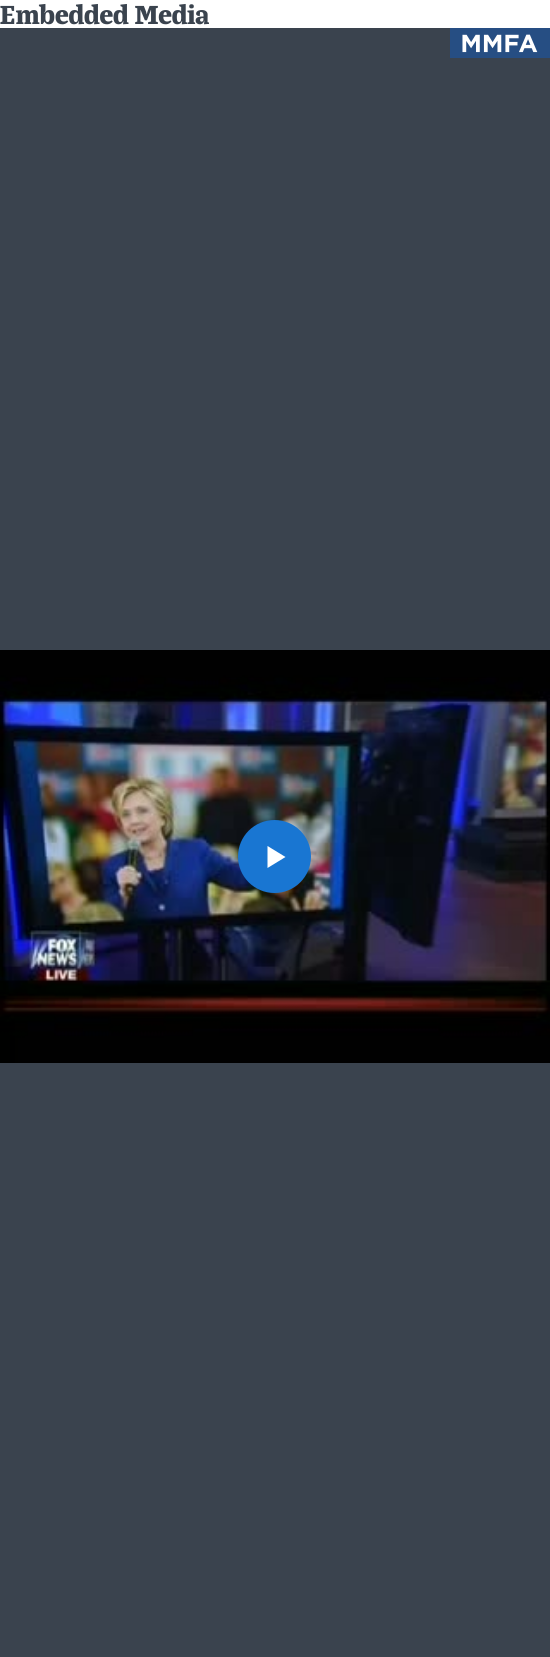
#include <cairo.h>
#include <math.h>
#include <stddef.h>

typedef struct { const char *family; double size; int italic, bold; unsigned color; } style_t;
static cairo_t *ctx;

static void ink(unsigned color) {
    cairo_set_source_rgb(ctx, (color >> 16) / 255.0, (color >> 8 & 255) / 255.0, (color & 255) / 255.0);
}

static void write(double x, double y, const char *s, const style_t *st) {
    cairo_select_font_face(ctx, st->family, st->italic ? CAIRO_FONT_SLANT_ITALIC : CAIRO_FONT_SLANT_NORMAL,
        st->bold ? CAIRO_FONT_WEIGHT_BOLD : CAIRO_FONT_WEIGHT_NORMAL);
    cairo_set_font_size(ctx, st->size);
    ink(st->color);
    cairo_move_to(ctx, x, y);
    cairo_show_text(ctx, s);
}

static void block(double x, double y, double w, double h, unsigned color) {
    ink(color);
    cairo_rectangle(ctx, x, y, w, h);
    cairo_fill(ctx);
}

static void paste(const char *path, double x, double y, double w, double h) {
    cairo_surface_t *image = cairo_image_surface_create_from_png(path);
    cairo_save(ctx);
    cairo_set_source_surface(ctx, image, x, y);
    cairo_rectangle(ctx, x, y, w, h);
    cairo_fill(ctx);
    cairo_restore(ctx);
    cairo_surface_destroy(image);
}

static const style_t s1 = {"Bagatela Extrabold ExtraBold", 28.25, 0, 0, 0x3a434e};

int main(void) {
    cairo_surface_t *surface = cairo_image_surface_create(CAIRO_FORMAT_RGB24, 550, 1657);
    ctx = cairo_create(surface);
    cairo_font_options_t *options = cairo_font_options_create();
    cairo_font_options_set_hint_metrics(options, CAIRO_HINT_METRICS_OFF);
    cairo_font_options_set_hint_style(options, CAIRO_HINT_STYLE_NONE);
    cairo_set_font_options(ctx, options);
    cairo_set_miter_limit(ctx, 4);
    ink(0xffffff);
    cairo_paint(ctx);
    write(0, 24, "Embedded Media", &s1);
    block(0, 28, 550, 1629, 0x3a434e);
    paste("pic1.png", 0, 650, 550, 413);
    paste("pic2.png", 450, 28, 100, 30);
    ink(0x1976d2);
    cairo_arc(ctx, 274.5, 856.5, 36.5, 0, 2 * M_PI);
    cairo_fill(ctx);
    ink(0xffffff);
    cairo_set_fill_rule(ctx, CAIRO_FILL_RULE_EVEN_ODD);
    cairo_new_path(ctx);
    cairo_move_to(ctx, 267.5, 846);
    cairo_line_to(ctx, 285.5, 857);
    cairo_line_to(ctx, 267.5, 868);
    cairo_close_path(ctx);
    cairo_fill(ctx);
    cairo_surface_write_to_png(surface, "screenshot.png");
    cairo_font_options_destroy(options);
    cairo_destroy(ctx);
    cairo_surface_destroy(surface);
    return 0;
}
